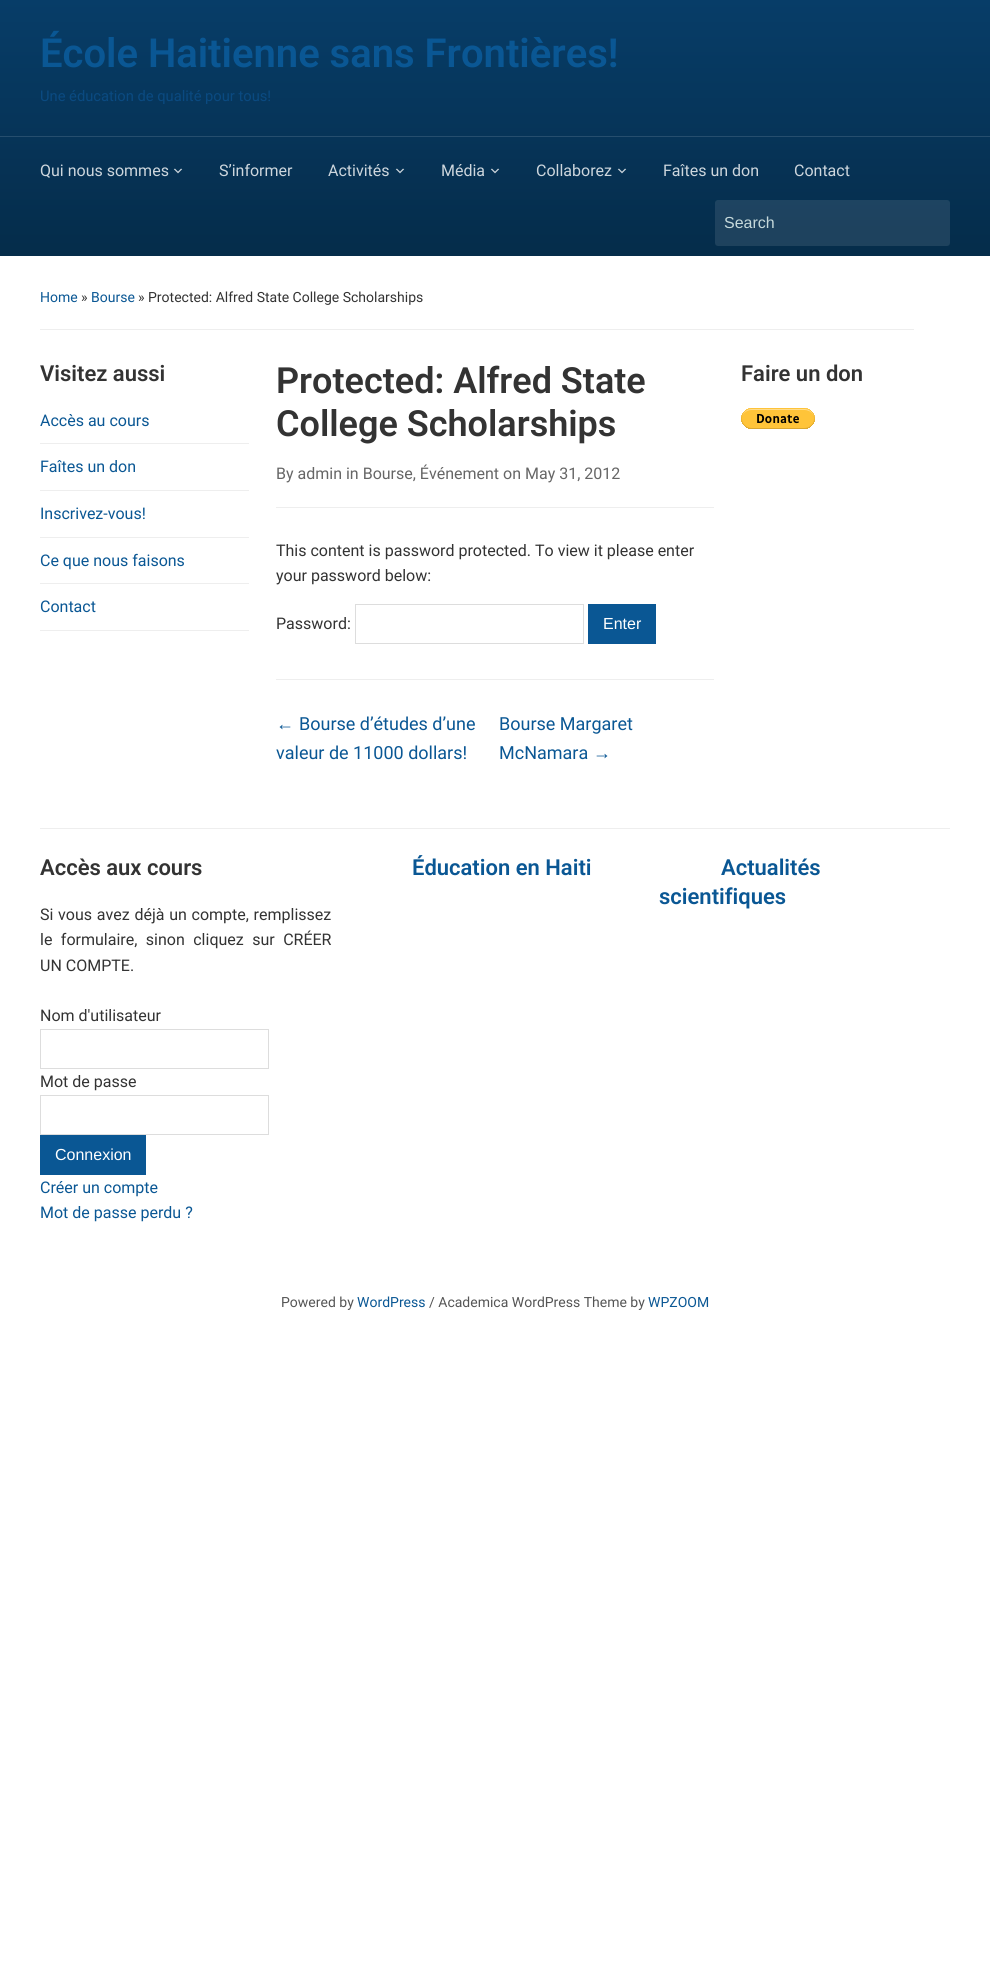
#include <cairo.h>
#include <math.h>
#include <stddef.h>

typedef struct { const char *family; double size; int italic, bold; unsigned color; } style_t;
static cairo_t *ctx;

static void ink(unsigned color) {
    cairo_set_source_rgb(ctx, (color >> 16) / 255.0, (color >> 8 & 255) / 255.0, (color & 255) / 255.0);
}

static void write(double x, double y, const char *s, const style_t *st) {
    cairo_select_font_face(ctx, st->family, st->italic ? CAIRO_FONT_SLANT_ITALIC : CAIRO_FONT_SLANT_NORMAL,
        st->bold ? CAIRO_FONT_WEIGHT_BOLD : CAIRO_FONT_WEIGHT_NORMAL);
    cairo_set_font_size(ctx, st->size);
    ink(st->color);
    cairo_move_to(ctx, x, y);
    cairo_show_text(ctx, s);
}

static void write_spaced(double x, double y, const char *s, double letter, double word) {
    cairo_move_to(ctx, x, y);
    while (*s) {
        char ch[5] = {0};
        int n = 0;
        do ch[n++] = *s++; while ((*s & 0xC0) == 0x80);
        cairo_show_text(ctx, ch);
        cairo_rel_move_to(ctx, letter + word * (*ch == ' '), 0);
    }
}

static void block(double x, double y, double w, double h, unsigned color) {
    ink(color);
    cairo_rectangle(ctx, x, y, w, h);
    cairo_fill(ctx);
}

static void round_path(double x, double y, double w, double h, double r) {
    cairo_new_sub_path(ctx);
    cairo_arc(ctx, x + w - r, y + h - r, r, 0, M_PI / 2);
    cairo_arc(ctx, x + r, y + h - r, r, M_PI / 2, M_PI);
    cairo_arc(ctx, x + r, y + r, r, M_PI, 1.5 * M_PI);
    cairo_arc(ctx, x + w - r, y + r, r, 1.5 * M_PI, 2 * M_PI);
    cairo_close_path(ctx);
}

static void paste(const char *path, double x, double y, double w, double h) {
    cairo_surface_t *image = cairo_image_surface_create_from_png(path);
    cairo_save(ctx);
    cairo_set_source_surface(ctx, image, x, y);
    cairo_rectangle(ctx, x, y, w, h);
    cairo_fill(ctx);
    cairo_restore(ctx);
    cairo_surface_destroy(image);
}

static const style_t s1 = {"Roboto SemiBold", 40, 0, 0, 0x0a5794};
static const style_t s2 = {"Roboto", 14.7, 0, 0, 0x0a4a81};
static const style_t s3 = {"Roboto", 16, 0, 0, 0xcdd6dd};
static const style_t s4 = {"Liberation Sans", 16, 0, 0, 0xc6d9db};
static const style_t s5 = {"Roboto", 14, 0, 0, 0x0a5794};
static const style_t s6 = {"Roboto", 14, 0, 0, 0x333333};
static const style_t s7 = {"Roboto SemiBold", 22, 0, 0, 0x333333};
static const style_t s8 = {"Roboto", 16, 0, 0, 0x0a5794};
static const style_t s9 = {"Roboto SemiBold", 36, 0, 0, 0x333333};
static const style_t s10 = {"Roboto", 16, 0, 0, 0x666666};
static const style_t s11 = {"Roboto", 16, 0, 0, 0x333333};
static const style_t s12 = {"Liberation Sans", 16, 0, 0, 0xffffff};
static const style_t s13 = {"Liberation Sans", 18, 0, 0, 0x0a5794};
static const style_t s14 = {"Roboto", 18, 0, 0, 0x0a5794};
static const style_t s15 = {"Roboto SemiBold", 22, 0, 0, 0x0a5794};
static const style_t s16 = {"Roboto", 14, 0, 0, 0x555555};

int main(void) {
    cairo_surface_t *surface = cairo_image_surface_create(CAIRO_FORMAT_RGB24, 990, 1981);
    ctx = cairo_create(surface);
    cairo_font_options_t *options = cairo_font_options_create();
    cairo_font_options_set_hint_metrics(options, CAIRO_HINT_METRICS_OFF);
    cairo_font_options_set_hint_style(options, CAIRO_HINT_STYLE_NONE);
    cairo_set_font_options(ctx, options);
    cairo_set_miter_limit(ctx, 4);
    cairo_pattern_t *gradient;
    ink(0xffffff);
    cairo_paint(ctx);
    gradient = cairo_pattern_create_linear(495, 0, 495, 256);
    cairo_pattern_add_color_stop_rgba(gradient, 0, 0.027, 0.239, 0.408, 1);
    cairo_pattern_add_color_stop_rgba(gradient, 1, 0.02, 0.173, 0.29, 1);
    cairo_set_source(ctx, gradient);
    cairo_pattern_destroy(gradient);
    cairo_rectangle(ctx, 0, 0, 990, 256);
    cairo_fill(ctx);
    write(40, 67, "École Haitienne sans Frontières!", &s1);
    write(40, 101, "Une éducation de qualité pour tous!", &s2);
    block(0, 136, 990, 1, 0x264e6e);
    write(40, 176, "Qui nous sommes", &s3);
    paste("pic1.png", 173, 168, 10, 6);
    write(219, 176, "S’informer", &s3);
    write(328, 176, "Activités", &s3);
    paste("pic1.png", 395, 168, 10, 6);
    write(441, 176, "Média", &s3);
    paste("pic1.png", 490, 168, 10, 6);
    write(536, 176, "Collaborez", &s3);
    paste("pic1.png", 617, 168, 10, 6);
    write(663, 176, "Faîtes un don", &s3);
    write(794, 176, "Contact", &s3);
    cairo_set_source_rgba(ctx, 1, 1, 1, 0.1);
    round_path(715, 200, 235, 46, 3);
    cairo_fill(ctx);
    write(724, 228, "Search", &s4);
    block(40, 329, 874, 1, 0xeeeeee);
    write(40, 302, "Home", &s5);
    write(81, 302, "»", &s6);
    write(91, 302, "Bourse", &s5);
    write(138, 302, "» Protected: Alfred State College Scholarships", &s6);
    write(40, 381, "Visitez aussi", &s7);
    block(40, 443, 209, 1, 0xeeeeee);
    write(40, 426, "Accès au cours", &s8);
    block(40, 490, 209, 1, 0xeeeeee);
    write(40, 472, "Faîtes un don", &s8);
    block(40, 537, 209, 1, 0xeeeeee);
    write(40, 519, "Inscrivez-vous!", &s8);
    block(40, 583, 209, 1, 0xeeeeee);
    write(40, 566, "Ce que nous faisons", &s8);
    block(40, 630, 209, 1, 0xeeeeee);
    write(40, 612, "Contact", &s8);
    write(276, 393, "Protected: Alfred State", &s9);
    write(276, 436, "College Scholarships", &s9);
    block(276, 507, 438, 1, 0xeeeeee);
    write(276, 479, "By admin in Bourse, Événement on May 31, 2012", &s10);
    write(276, 556, "This content is password protected. To view it please enter", &s11);
    write(276, 581, "your password below:", &s11);
    write(276, 629, "Password:", &s11);
    cairo_rectangle(ctx, 355.5, 604.5, 228, 39);
    ink(0xdddddd);
    cairo_set_line_width(ctx, 1);
    cairo_stroke(ctx);
    block(588, 604, 68, 40, 0x0a5794);
    write(603, 629, "Enter", &s12);
    block(276, 679, 438, 1, 0xeeeeee);
    write(276, 730, "←", &s13);
    write(299, 730, "Bourse d’études d’une", &s14);
    write(276, 759, "valeur de 11000 dollars!", &s14);
    write(499, 730, "Bourse Margaret", &s14);
    write(499, 759, "McNamara", &s14);
    write(593, 759, "→", &s13);
    write(741, 381, "Faire un don", &s7);
    paste("pic2.png", 741, 408, 74, 21);
    block(40, 828, 910, 1, 0xeeeeee);
    write(40, 875, "Accès aux cours", &s7);
    cairo_select_font_face(ctx, "Roboto", CAIRO_FONT_SLANT_NORMAL, CAIRO_FONT_WEIGHT_NORMAL);
    cairo_set_font_size(ctx, 16);
    write_spaced(40, 920, "Si vous avez déjà un compte, remplissez", 0, 0.75);
    write_spaced(40, 945, "le formulaire, sinon cliquez sur CRÉER", 0, 4.5);
    write(40, 971, "UN COMPTE.", &s11);
    write(40, 1021, "Nom d'utilisateur", &s11);
    cairo_rectangle(ctx, 40.5, 1029.5, 228, 39);
    ink(0xdddddd);
    cairo_stroke(ctx);
    write(40, 1087, "Mot de passe", &s11);
    cairo_rectangle(ctx, 40.5, 1095.5, 228, 39);
    ink(0xdddddd);
    cairo_stroke(ctx);
    block(40, 1135, 106, 40, 0x0a5794);
    write(55, 1160, "Connexion", &s12);
    write(40, 1193, "Créer un compte", &s8);
    write(40, 1218, "Mot de passe perdu ?", &s8);
    write(412, 875, "Éducation en Haiti", &s15);
    write(721, 875, "Actualités", &s15);
    write(659, 904, "scientifiques", &s15);
    write(281, 1307, "Powered by", &s16);
    write(357, 1307, "WordPress", &s5);
    write(429, 1307, "/ Academica WordPress Theme by", &s16);
    write(648, 1307, "WPZOOM", &s5);
    cairo_surface_write_to_png(surface, "screenshot.png");
    cairo_font_options_destroy(options);
    cairo_destroy(ctx);
    cairo_surface_destroy(surface);
    return 0;
}
